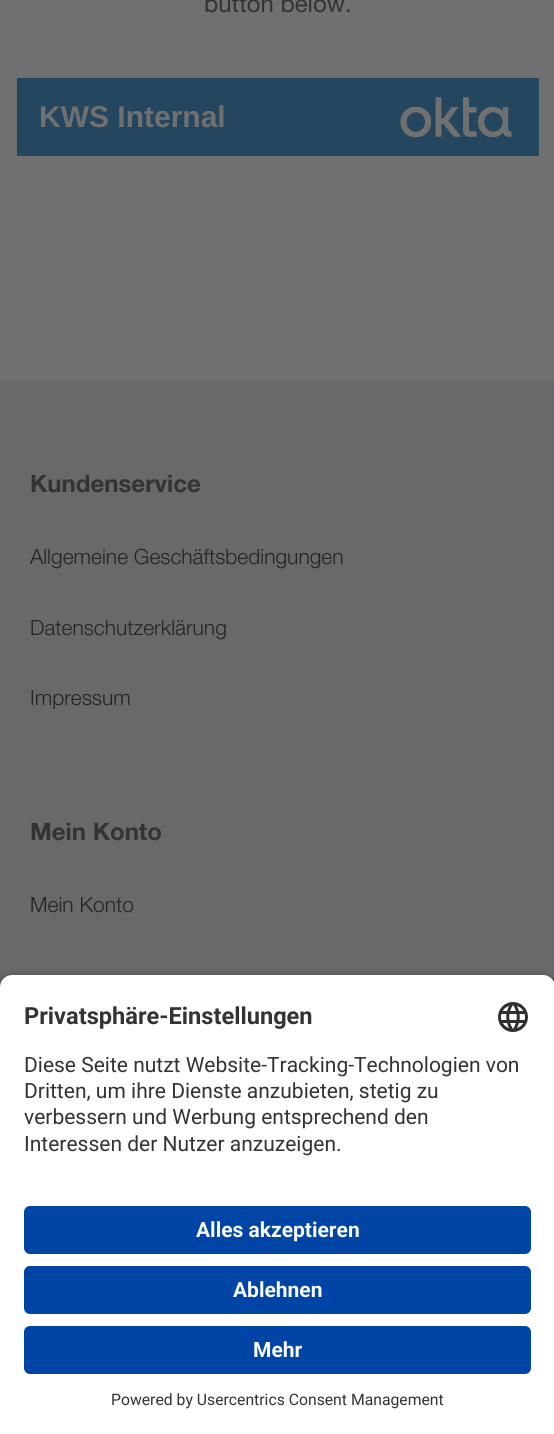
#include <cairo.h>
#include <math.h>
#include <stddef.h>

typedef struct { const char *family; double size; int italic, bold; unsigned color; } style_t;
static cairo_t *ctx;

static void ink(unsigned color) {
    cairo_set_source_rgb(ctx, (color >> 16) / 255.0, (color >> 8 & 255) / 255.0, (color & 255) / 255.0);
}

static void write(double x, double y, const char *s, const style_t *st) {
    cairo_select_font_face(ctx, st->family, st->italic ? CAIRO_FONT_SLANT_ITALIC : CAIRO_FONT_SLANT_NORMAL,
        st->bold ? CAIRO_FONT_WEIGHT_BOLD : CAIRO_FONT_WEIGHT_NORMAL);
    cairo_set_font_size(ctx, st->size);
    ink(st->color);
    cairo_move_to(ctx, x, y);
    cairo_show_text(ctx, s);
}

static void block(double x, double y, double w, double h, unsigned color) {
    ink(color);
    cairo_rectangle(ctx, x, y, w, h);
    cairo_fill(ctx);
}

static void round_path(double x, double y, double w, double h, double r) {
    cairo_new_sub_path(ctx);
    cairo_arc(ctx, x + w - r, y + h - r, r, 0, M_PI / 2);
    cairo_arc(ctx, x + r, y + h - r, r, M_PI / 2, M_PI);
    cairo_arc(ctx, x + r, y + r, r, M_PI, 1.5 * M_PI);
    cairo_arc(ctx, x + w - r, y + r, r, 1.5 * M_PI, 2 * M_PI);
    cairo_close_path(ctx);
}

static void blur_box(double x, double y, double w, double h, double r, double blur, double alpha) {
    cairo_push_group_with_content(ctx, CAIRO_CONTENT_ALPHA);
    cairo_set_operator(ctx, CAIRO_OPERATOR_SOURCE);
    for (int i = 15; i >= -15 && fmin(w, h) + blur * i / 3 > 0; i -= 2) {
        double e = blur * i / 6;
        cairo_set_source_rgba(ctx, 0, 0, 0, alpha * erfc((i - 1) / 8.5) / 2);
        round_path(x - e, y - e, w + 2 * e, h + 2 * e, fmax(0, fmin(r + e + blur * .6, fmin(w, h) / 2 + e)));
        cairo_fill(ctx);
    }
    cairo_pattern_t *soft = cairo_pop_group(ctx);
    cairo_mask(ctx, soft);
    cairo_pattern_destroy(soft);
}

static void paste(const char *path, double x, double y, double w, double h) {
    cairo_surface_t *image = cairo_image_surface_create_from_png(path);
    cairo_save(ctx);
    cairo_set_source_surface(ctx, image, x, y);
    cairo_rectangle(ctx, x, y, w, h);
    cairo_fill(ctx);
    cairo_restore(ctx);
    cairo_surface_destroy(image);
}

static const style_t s1 = {"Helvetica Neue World", 24, 0, 0, 0x333333};
static const style_t s2 = {"Liberation Sans", 30, 0, 1, 0x707070};
static const style_t s3 = {"Helvetica Neue World", 24, 0, 1, 0x333333};
static const style_t s4 = {"Helvetica Neue World Light", 21, 0, 0, 0x242424};
static const style_t s5 = {"Roboto", 23.6, 0, 1, 0x333333};
static const style_t s6 = {"Roboto", 21, 0, 0, 0x333333};
static const style_t s7 = {"Roboto", 21, 0, 1, 0xfafafa};
static const style_t s8 = {"Roboto", 15.75, 0, 0, 0x333333};

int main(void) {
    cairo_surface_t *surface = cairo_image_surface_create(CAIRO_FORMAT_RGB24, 554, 1434);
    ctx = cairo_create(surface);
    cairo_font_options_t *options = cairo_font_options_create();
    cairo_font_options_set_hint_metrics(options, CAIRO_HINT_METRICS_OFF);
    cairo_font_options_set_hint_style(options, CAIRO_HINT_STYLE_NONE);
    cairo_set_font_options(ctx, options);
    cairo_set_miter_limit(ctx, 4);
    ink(0x707070);
    cairo_paint(ctx);
    write(204, 12, "button below.", &s1);
    block(17, 78, 522, 78, 0x24465f);
    write(39, 127, "KWS Internal", &s2);
    paste("pic1.png", 400, 97, 112, 41);
    block(0, 381, 554, 606, 0x68696a);
    write(30, 492, "Kundenservice", &s3);
    write(30, 564, "Allgemeine Geschäftsbedingungen", &s4);
    write(30, 635, "Datenschutzerklärung", &s4);
    write(30, 705, "Impressum", &s4);
    write(30, 840, "Mein Konto", &s3);
    write(30, 912, "Mein Konto", &s4);
    ink(0x000000);
    blur_box(0, 980, 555, 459, 12, 5, 0.8);
    ink(0xffffff);
    cairo_new_path(ctx);
    cairo_move_to(ctx, 12, 975);
    cairo_line_to(ctx, 543, 975);
    cairo_curve_to(ctx, 549.5, 975, 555, 980.5, 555, 987);
    cairo_line_to(ctx, 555, 1188);
    cairo_line_to(ctx, 0, 1188);
    cairo_line_to(ctx, 0, 987);
    cairo_curve_to(ctx, 0, 980.5, 5.5, 975, 12, 975);
    cairo_close_path(ctx);
    cairo_fill(ctx);
    write(24, 1024, "Privatsphäre-Einstellungen", &s5);
    paste("pic2.png", 498, 1002, 30, 30);
    write(24, 1072, "Diese Seite nutzt Website-Tracking-Technologien von", &s6);
    write(24, 1098, "Dritten, um ihre Dienste anzubieten, stetig zu", &s6);
    write(24, 1124, "verbessern und Werbung entsprechend den", &s6);
    write(24, 1151, "Interessen der Nutzer anzuzeigen.", &s6);
    block(0, 1188, 554, 246, 0xffffff);
    ink(0x0045a5);
    round_path(24, 1206, 507, 48, 6);
    cairo_fill(ctx);
    write(196, 1237, "Alles akzeptieren", &s7);
    ink(0x0045a5);
    round_path(24, 1266, 507, 48, 6);
    cairo_fill(ctx);
    write(233, 1297, "Ablehnen", &s7);
    ink(0x0045a5);
    round_path(24, 1326, 507, 48, 6);
    cairo_fill(ctx);
    write(253, 1357, "Mehr", &s7);
    write(111, 1405, "Powered by Usercentrics Consent Management", &s8);
    cairo_surface_write_to_png(surface, "screenshot.png");
    cairo_font_options_destroy(options);
    cairo_destroy(ctx);
    cairo_surface_destroy(surface);
    return 0;
}
